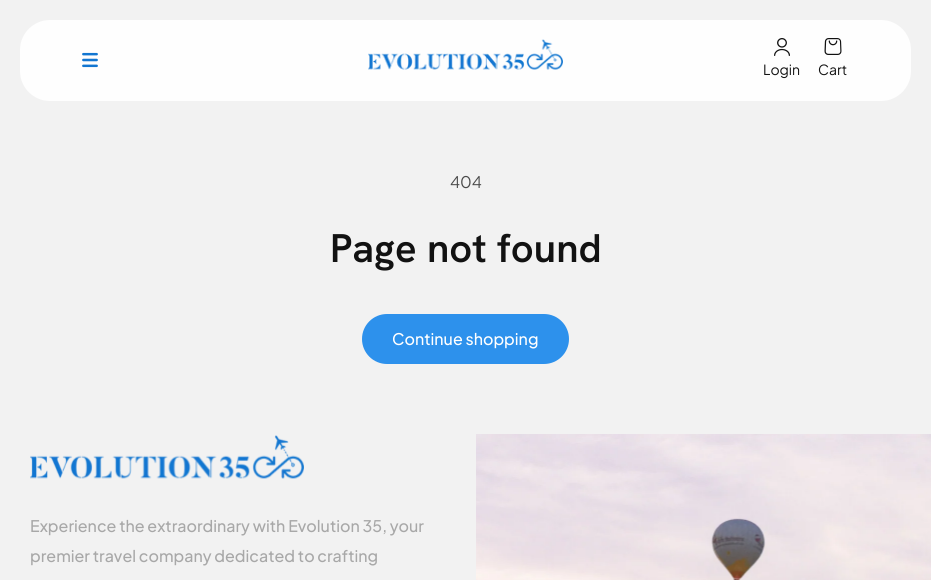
#include <cairo.h>
#include <math.h>
#include <stddef.h>

typedef struct { const char *family; double size; int italic, bold; unsigned color; } style_t;
static cairo_t *ctx;

static void ink(unsigned color) {
    cairo_set_source_rgb(ctx, (color >> 16) / 255.0, (color >> 8 & 255) / 255.0, (color & 255) / 255.0);
}

static void write(double x, double y, const char *s, const style_t *st) {
    cairo_select_font_face(ctx, st->family, st->italic ? CAIRO_FONT_SLANT_ITALIC : CAIRO_FONT_SLANT_NORMAL,
        st->bold ? CAIRO_FONT_WEIGHT_BOLD : CAIRO_FONT_WEIGHT_NORMAL);
    cairo_set_font_size(ctx, st->size);
    ink(st->color);
    cairo_move_to(ctx, x, y);
    cairo_show_text(ctx, s);
}

static void round_path(double x, double y, double w, double h, double r) {
    cairo_new_sub_path(ctx);
    cairo_arc(ctx, x + w - r, y + h - r, r, 0, M_PI / 2);
    cairo_arc(ctx, x + r, y + h - r, r, M_PI / 2, M_PI);
    cairo_arc(ctx, x + r, y + r, r, M_PI, 1.5 * M_PI);
    cairo_arc(ctx, x + w - r, y + r, r, 1.5 * M_PI, 2 * M_PI);
    cairo_close_path(ctx);
}

static void paste(const char *path, double x, double y, double w, double h) {
    cairo_surface_t *image = cairo_image_surface_create_from_png(path);
    cairo_save(ctx);
    cairo_set_source_surface(ctx, image, x, y);
    cairo_rectangle(ctx, x, y, w, h);
    cairo_fill(ctx);
    cairo_restore(ctx);
    cairo_surface_destroy(image);
}

static const style_t s1 = {"Plus Jakarta Sans", 14, 0, 0, 0x121212};
static const style_t s2 = {"Plus Jakarta Sans", 16, 0, 0, 0x4a4a4a};
static const style_t s3 = {"Hanken Grotesk SemiBold", 40, 0, 0, 0x121212};
static const style_t s4 = {"Plus Jakarta Sans Medium", 16, 0, 0, 0xffffff};
static const style_t s5 = {"Plus Jakarta Sans Medium", 16, 0, 0, 0xa8a8a8};

int main(void) {
    cairo_surface_t *surface = cairo_image_surface_create(CAIRO_FORMAT_RGB24, 931, 580);
    ctx = cairo_create(surface);
    cairo_font_options_t *options = cairo_font_options_create();
    cairo_font_options_set_hint_metrics(options, CAIRO_HINT_METRICS_OFF);
    cairo_font_options_set_hint_style(options, CAIRO_HINT_STYLE_NONE);
    cairo_set_font_options(ctx, options);
    cairo_set_miter_limit(ctx, 4);
    ink(0xf2f2f2);
    cairo_paint(ctx);
    ink(0xfefefe);
    round_path(20, 20, 891, 81, 30);
    cairo_fill(ctx);
    paste("pic1.png", 82, 52, 16, 16);
    paste("pic2.png", 368, 39, 195, 31);
    paste("pic3.png", 774, 38, 16, 18);
    write(763, 75, "Login", &s1);
    paste("pic4.png", 824, 38, 18, 17);
    write(818, 75, "Cart", &s1);
    write(450, 188, "404", &s2);
    write(330, 262, "Page not found", &s3);
    ink(0x2d91ec);
    round_path(362, 314, 207, 50, 25);
    cairo_fill(ctx);
    write(392, 345, "Continue shopping", &s4);
    paste("pic5.png", 30, 435, 274, 44);
    write(30, 532, "Experience the extraordinary with Evolution 35, your", &s5);
    write(30, 562, "premier travel company dedicated to crafting", &s5);
    paste("pic6.png", 476, 434, 455, 146);
    cairo_surface_write_to_png(surface, "screenshot.png");
    cairo_font_options_destroy(options);
    cairo_destroy(ctx);
    cairo_surface_destroy(surface);
    return 0;
}
